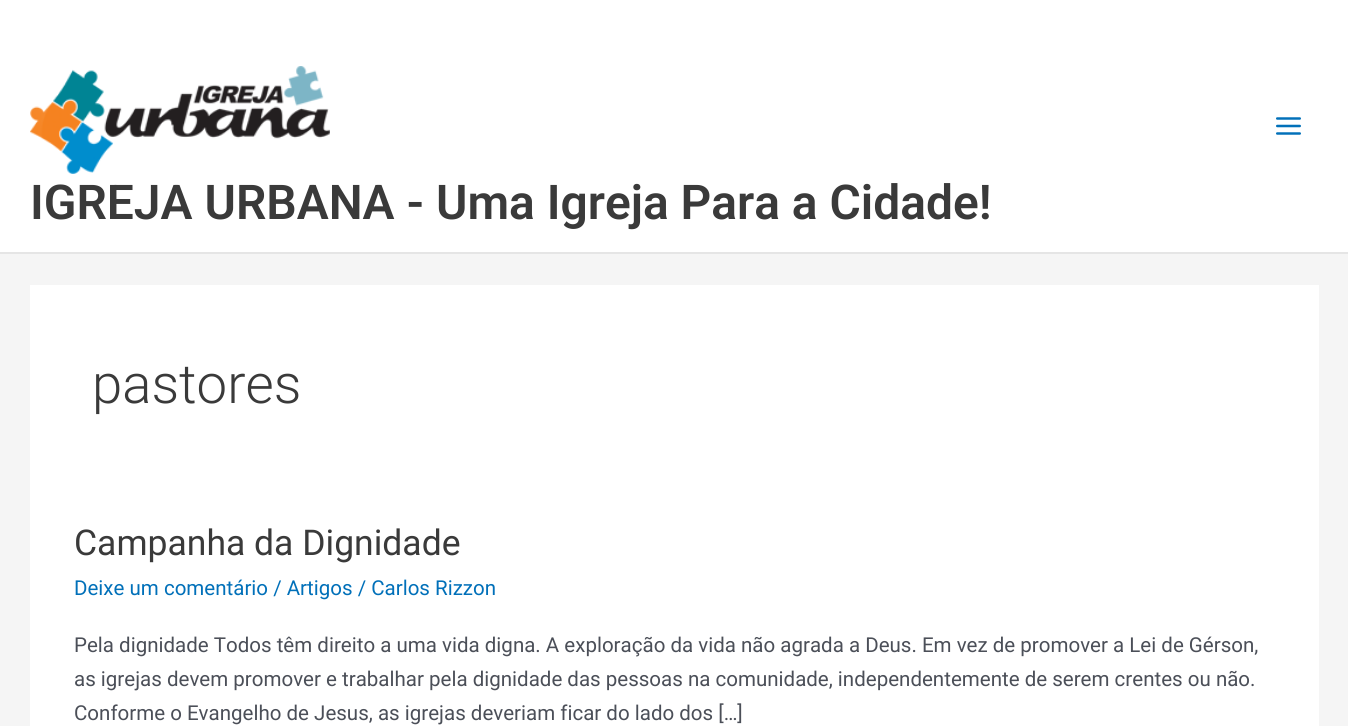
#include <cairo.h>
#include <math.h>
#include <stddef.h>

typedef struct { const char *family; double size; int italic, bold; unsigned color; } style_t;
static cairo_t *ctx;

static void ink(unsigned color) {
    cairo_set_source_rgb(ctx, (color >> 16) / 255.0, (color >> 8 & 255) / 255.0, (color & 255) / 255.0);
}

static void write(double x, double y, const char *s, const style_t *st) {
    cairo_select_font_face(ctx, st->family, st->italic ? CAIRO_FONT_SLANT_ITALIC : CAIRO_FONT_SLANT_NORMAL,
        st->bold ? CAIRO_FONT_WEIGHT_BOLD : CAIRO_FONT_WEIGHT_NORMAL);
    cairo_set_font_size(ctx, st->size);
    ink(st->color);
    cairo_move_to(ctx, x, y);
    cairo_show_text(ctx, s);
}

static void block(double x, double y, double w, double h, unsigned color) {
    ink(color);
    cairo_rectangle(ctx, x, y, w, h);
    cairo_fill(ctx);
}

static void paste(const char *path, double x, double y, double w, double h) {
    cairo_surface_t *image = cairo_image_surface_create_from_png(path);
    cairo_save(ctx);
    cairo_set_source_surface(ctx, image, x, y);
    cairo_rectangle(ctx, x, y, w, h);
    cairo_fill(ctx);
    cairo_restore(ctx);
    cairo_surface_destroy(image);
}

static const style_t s1 = {"Roboto SemiBold", 47.9, 0, 0, 0x3a3a3a};
static const style_t s2 = {"Roboto Light", 54.5, 0, 0, 0x3a3a3a};
static const style_t s3 = {"Roboto", 35.5, 0, 0, 0x3a3a3a};
static const style_t s4 = {"Roboto", 20.52, 0, 0, 0x0170b9};
static const style_t s5 = {"Roboto", 20.52, 0, 0, 0x4b4f58};

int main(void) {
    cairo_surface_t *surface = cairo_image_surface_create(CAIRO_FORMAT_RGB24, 1348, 726);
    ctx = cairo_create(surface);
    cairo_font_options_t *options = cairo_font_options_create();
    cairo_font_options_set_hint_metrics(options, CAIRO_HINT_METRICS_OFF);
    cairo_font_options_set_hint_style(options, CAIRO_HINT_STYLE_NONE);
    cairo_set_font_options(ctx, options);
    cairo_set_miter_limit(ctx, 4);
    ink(0xf5f5f5);
    cairo_paint(ctx);
    block(0, 0, 1348, 252, 0xffffff);
    block(0, 252, 1348, 2, 0xe5e5e5);
    paste("pic1.png", 1276, 117, 25, 18);
    paste("pic2.png", 30, 66, 300, 108);
    write(30, 219, "IGREJA URBANA - Uma Igreja Para a Cidade!", &s1);
    block(30, 285, 1289, 441, 0xffffff);
    write(92, 403, "pastores", &s2);
    write(74, 555, "Campanha da Dignidade", &s3);
    write(74, 595, "Deixe um comentário / Artigos / Carlos Rizzon", &s4);
    write(74, 652, "Pela dignidade Todos têm direito a uma vida digna. A exploração da vida não agrada a Deus. Em vez de promover a Lei de Gérson,", &s5);
    write(74, 686, "as igrejas devem promover e trabalhar pela dignidade das pessoas na comunidade, independentemente de serem crentes ou não.", &s5);
    write(74, 720, "Conforme o Evangelho de Jesus, as igrejas deveriam ficar do lado dos […]", &s5);
    cairo_surface_write_to_png(surface, "screenshot.png");
    cairo_font_options_destroy(options);
    cairo_destroy(ctx);
    cairo_surface_destroy(surface);
    return 0;
}
